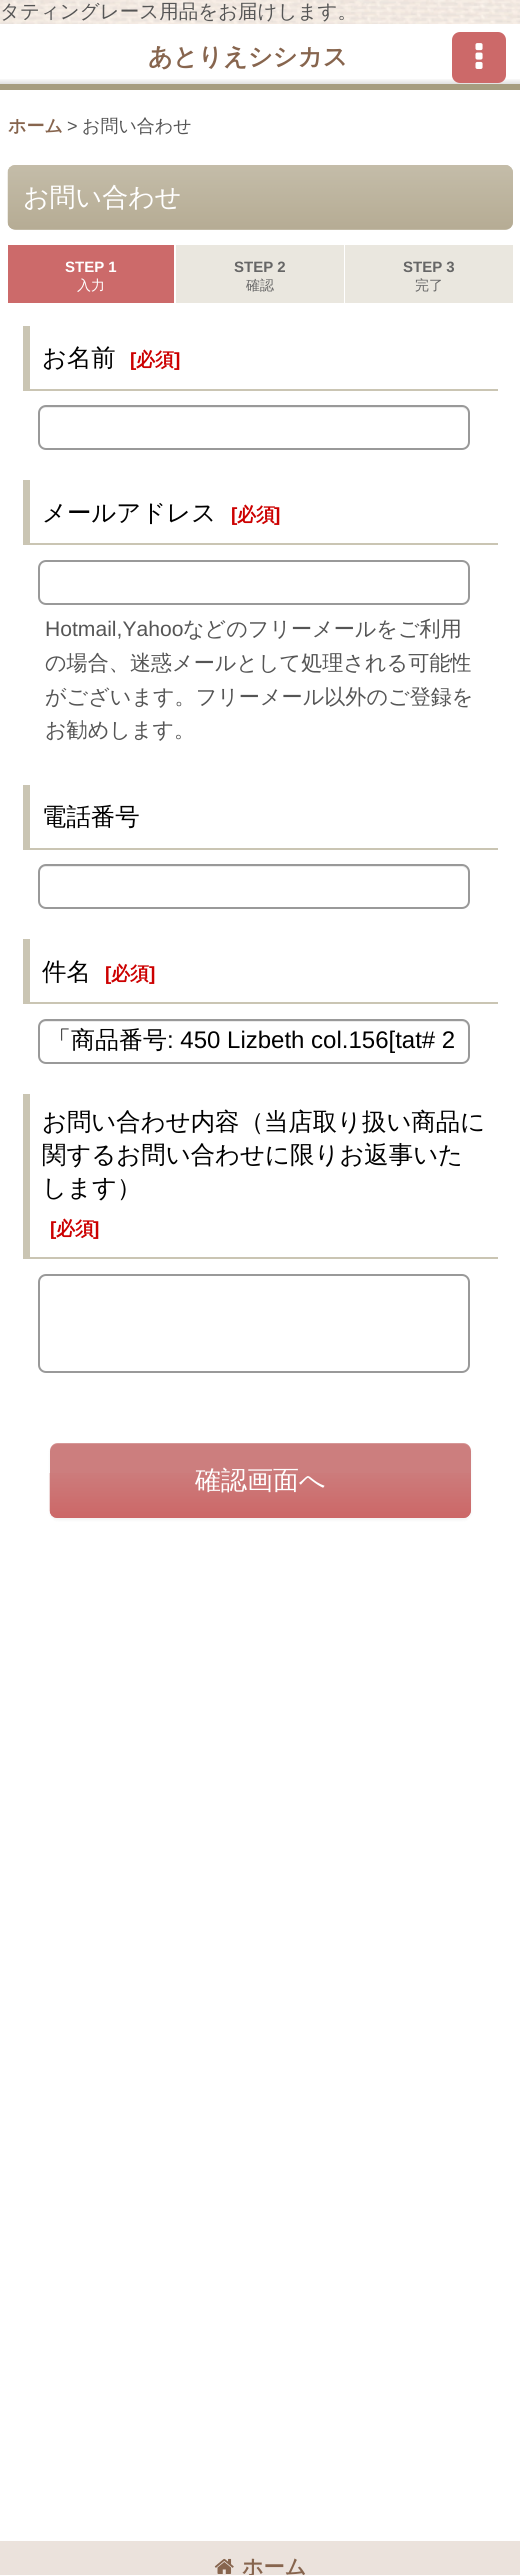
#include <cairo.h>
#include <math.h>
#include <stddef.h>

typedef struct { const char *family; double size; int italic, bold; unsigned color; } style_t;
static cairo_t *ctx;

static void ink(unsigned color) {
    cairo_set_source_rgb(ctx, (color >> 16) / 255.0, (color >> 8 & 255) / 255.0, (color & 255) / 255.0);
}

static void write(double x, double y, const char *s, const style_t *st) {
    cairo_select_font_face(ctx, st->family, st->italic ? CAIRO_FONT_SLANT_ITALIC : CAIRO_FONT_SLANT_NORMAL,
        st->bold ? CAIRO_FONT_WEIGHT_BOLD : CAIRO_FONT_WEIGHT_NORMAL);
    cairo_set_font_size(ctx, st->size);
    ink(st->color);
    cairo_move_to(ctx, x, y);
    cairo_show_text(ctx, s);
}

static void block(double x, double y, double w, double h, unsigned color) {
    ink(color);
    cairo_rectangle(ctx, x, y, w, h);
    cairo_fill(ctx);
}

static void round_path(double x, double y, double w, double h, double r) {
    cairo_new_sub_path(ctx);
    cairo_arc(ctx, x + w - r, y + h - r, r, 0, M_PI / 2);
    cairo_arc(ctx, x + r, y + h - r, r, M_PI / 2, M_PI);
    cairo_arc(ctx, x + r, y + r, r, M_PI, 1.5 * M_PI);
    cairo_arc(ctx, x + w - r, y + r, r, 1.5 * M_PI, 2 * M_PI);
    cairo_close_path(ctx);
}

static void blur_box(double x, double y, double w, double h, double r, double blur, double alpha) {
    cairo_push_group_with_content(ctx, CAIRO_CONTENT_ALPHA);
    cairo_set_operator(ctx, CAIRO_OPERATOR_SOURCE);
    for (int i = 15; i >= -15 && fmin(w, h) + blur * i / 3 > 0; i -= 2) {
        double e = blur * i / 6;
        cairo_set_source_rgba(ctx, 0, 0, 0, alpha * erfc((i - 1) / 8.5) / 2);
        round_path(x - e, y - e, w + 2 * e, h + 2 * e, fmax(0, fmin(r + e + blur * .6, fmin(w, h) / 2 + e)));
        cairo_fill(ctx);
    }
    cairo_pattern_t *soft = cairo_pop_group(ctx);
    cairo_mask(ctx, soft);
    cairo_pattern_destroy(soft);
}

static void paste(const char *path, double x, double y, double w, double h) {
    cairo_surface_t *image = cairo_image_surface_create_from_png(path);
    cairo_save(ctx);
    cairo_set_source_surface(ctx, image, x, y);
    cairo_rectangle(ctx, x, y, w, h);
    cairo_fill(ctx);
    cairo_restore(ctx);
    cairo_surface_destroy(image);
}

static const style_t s1 = {"WenQuanYi Zen Hei Medium", 19.5, 0, 0, 0x555555};
static const style_t s2 = {"WenQuanYi Zen Hei", 24.4, 0, 1, 0x87654e};
static const style_t s3 = {"WenQuanYi Zen Hei", 18, 0, 1, 0x87654e};
static const style_t s4 = {"Liberation Sans", 18, 0, 0, 0x555555};
static const style_t s5 = {"WenQuanYi Zen Hei Medium", 18, 0, 0, 0x555555};
static const style_t s6 = {"WenQuanYi Zen Hei Medium", 26, 0, 0, 0xffffff};
static const style_t s7 = {"Liberation Sans", 15, 0, 1, 0xffffff};
static const style_t s8 = {"WenQuanYi Zen Hei Medium", 14, 0, 0, 0xffffff};
static const style_t s9 = {"Liberation Sans", 15, 0, 1, 0x666666};
static const style_t s10 = {"WenQuanYi Zen Hei Medium", 14, 0, 0, 0x666666};
static const style_t s11 = {"WenQuanYi Zen Hei Medium", 24.4, 0, 0, 0x000000};
static const style_t s12 = {"Liberation Sans", 19, 0, 1, 0xcc0000};
static const style_t s13 = {"WenQuanYi Zen Hei", 19, 0, 1, 0xcc0000};
static const style_t s14 = {"Liberation Sans", 21.1, 0, 0, 0x555555};
static const style_t s15 = {"WenQuanYi Zen Hei Medium", 21.1, 0, 0, 0x555555};
static const style_t s16 = {"WenQuanYi Zen Hei Medium", 24, 0, 0, 0x000000};
static const style_t s17 = {"Liberation Sans", 24, 0, 0, 0x000000};
static const style_t s18 = {"WenQuanYi Zen Hei", 21.1, 0, 1, 0x87654e};

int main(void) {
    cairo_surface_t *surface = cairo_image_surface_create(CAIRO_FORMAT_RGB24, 520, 2575);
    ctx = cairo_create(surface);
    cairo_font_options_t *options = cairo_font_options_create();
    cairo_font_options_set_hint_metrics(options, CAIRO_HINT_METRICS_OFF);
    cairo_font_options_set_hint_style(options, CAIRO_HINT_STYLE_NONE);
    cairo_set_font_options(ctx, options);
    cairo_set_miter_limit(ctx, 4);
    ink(0xffffff);
    cairo_paint(ctx);
    paste("pic1.png", 0, 0, 520, 24);
    write(0, 18, "タティングレース用品をお届けします。", &s1);
    paste("pic2.png", 0, 79, 520, 11);
    write(148, 65, "あとりえシシカス", &s2);
    ink(0xcc6969);
    round_path(452, 32, 54, 51, 8);
    cairo_fill(ctx);
    paste("pic3.png", 475, 43, 8, 26);
    write(8, 132, "ホーム", &s3);
    write(67, 132, ">", &s4);
    write(82, 132, "お問い合わせ", &s5);
    ink(0xc6bfac);
    round_path(8, 165, 505, 65, 8);
    cairo_fill(ctx);
    paste("pic4.png", 7, 165, 506, 65);
    write(23, 206, "お問い合わせ", &s6);
    block(8, 245, 166, 58, 0xcc6a6a);
    write(65, 272, "STEP 1", &s7);
    write(77, 290, "入力", &s8);
    block(176, 245, 168, 58, 0xeae7df);
    write(234, 272, "STEP 2", &s9);
    write(246, 290, "確認", &s10);
    block(345, 245, 168, 58, 0xeae7df);
    write(403, 272, "STEP 3", &s9);
    write(415, 290, "完了", &s10);
    block(23, 389, 475, 2, 0xcac5b3);
    block(23, 326, 7, 64, 0xcac5b3);
    write(42, 366, "お名前", &s11);
    write(130, 366, "[", &s12);
    write(136, 366, "必須", &s13);
    write(174, 366, "]", &s12);
    ink(0xececec);
    cairo_new_path(ctx);
    cairo_move_to(ctx, 45, 408);
    cairo_line_to(ctx, 462, 408);
    cairo_curve_to(ctx, 465, 408, 468, 411, 468, 414);
    cairo_line_to(ctx, 468, 413);
    cairo_curve_to(ctx, 468, 410, 465, 407, 462, 407);
    cairo_line_to(ctx, 45, 407);
    cairo_curve_to(ctx, 42, 407, 39, 410, 39, 413);
    cairo_line_to(ctx, 39, 414);
    cairo_curve_to(ctx, 39, 411, 42, 408, 45, 408);
    cairo_close_path(ctx);
    cairo_fill(ctx);
    round_path(39, 406, 430, 43, 7);
    ink(0x999999);
    cairo_stroke(ctx);
    block(23, 543, 475, 2, 0xcac5b3);
    block(23, 480, 7, 65, 0xcac5b3);
    write(42, 521, "メールアドレス", &s11);
    write(231, 521, "[", &s12);
    write(237, 521, "必須", &s13);
    write(274, 521, "]", &s12);
    round_path(39, 561, 430, 43, 7);
    ink(0x999999);
    cairo_stroke(ctx);
    write(45, 636, "Hotmail,Yahoo", &s14);
    write(183, 636, "などのフリーメールをご利用", &s15);
    write(45, 670, "の場合、迷惑メールとして処理される可能性", &s15);
    write(45, 704, "がございます。フリーメール以外のご登録を", &s15);
    write(45, 737, "お勧めします。", &s15);
    block(23, 848, 475, 2, 0xcac5b3);
    block(23, 785, 7, 64, 0xcac5b3);
    write(42, 825, "電話番号", &s11);
    ink(0xececec);
    cairo_new_path(ctx);
    cairo_move_to(ctx, 45, 867);
    cairo_line_to(ctx, 462, 867);
    cairo_curve_to(ctx, 465, 867, 468, 870, 468, 873);
    cairo_line_to(ctx, 468, 872);
    cairo_curve_to(ctx, 468, 869, 465, 866, 462, 866);
    cairo_line_to(ctx, 45, 866);
    cairo_curve_to(ctx, 42, 866, 39, 869, 39, 872);
    cairo_line_to(ctx, 39, 873);
    cairo_curve_to(ctx, 39, 870, 42, 867, 45, 867);
    cairo_close_path(ctx);
    cairo_fill(ctx);
    round_path(39, 865, 430, 43, 7);
    ink(0x999999);
    cairo_stroke(ctx);
    block(23, 1002, 475, 2, 0xcac5b3);
    block(23, 939, 7, 65, 0xcac5b3);
    write(42, 980, "件名", &s11);
    write(105, 980, "[", &s12);
    write(111, 980, "必須", &s13);
    write(149, 980, "]", &s12);
    ink(0xececec);
    cairo_new_path(ctx);
    cairo_move_to(ctx, 45, 1022);
    cairo_line_to(ctx, 462, 1022);
    cairo_curve_to(ctx, 465, 1022, 468, 1024, 468, 1028);
    cairo_line_to(ctx, 468, 1026);
    cairo_curve_to(ctx, 468, 1023, 465, 1020, 462, 1020);
    cairo_line_to(ctx, 45, 1020);
    cairo_curve_to(ctx, 42, 1020, 39, 1023, 39, 1026);
    cairo_line_to(ctx, 39, 1028);
    cairo_curve_to(ctx, 39, 1024, 42, 1022, 45, 1022);
    cairo_close_path(ctx);
    cairo_fill(ctx);
    round_path(39, 1020, 430, 43, 7);
    ink(0x999999);
    cairo_stroke(ctx);
    write(47, 1048, "「商品番号", &s16);
    write(167, 1048, ": 450 Lizbeth col.156[tat# 2", &s17);
    block(23, 1257, 475, 2, 0xcac5b3);
    block(23, 1094, 7, 165, 0xcac5b3);
    write(42, 1130, "お問い合わせ内容（当店取り扱い商品に", &s11);
    write(42, 1163, "関するお問い合わせに限りお返事いた", &s11);
    write(42, 1196, "します）", &s11);
    write(50, 1235, "[", &s12);
    write(56, 1235, "必須", &s13);
    write(93, 1235, "]", &s12);
    round_path(39, 1275, 430, 97, 7);
    ink(0x999999);
    cairo_stroke(ctx);
    ink(0x000000);
    blur_box(50, 1445, 421, 75, 8, 1.5, 0.05);
    ink(0xcc7e7e);
    round_path(50, 1443, 421, 75, 8);
    cairo_fill(ctx);
    paste("pic5.png", 49, 1473, 422, 45);
    cairo_set_source_rgba(ctx, 1, 1, 1, 0.2);
    cairo_new_path(ctx);
    cairo_move_to(ctx, 57, 1444);
    cairo_line_to(ctx, 464, 1444);
    cairo_curve_to(ctx, 468, 1444, 471, 1448, 471, 1452);
    cairo_line_to(ctx, 471, 1451);
    cairo_curve_to(ctx, 471, 1447, 467, 1443, 463, 1443);
    cairo_line_to(ctx, 58, 1443);
    cairo_curve_to(ctx, 54, 1443, 50, 1447, 50, 1451);
    cairo_line_to(ctx, 50, 1452);
    cairo_curve_to(ctx, 50, 1448, 53, 1444, 57, 1444);
    cairo_close_path(ctx);
    cairo_fill(ctx);
    write(195, 1489, "確認画面へ", &s6);
    block(0, 2541, 520, 34, 0xebe2dc);
    paste("pic6.png", 214, 2558, 20, 16);
    write(242, 2574, "ホーム", &s18);
    cairo_surface_write_to_png(surface, "screenshot.png");
    cairo_font_options_destroy(options);
    cairo_destroy(ctx);
    cairo_surface_destroy(surface);
    return 0;
}
